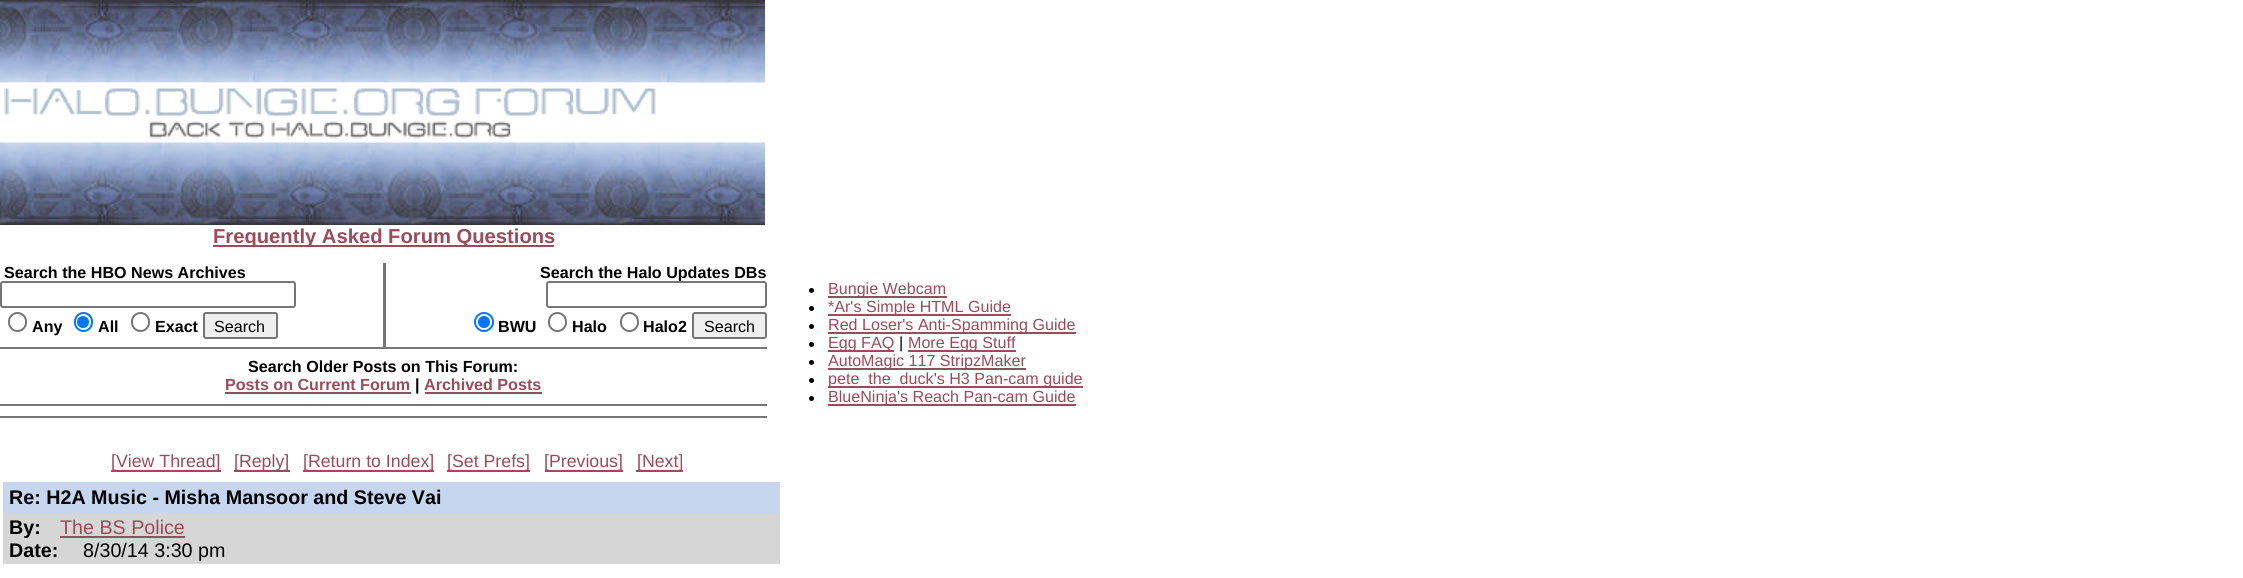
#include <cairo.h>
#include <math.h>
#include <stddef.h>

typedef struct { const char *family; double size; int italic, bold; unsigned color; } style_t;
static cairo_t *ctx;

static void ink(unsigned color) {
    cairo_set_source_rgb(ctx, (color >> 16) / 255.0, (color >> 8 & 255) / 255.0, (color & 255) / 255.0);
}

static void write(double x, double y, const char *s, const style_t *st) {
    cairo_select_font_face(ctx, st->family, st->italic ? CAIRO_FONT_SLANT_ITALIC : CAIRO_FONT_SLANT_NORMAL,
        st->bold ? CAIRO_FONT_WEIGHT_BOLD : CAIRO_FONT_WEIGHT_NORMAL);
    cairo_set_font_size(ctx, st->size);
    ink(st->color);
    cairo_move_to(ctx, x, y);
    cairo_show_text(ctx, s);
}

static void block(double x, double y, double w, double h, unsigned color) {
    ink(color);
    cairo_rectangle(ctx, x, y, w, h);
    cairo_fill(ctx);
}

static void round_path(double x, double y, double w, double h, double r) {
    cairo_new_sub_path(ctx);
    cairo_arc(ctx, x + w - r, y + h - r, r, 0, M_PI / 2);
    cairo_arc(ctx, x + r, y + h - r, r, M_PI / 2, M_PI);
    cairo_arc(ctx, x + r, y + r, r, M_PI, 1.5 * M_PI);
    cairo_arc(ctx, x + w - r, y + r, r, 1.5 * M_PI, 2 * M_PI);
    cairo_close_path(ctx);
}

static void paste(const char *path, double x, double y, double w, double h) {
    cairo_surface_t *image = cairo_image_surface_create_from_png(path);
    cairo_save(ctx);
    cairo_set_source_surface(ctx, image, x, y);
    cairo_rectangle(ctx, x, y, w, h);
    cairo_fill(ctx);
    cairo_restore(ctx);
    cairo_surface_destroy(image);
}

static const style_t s1 = {"Liberation Sans", 20.2, 0, 1, 0x994c5a};
static const style_t s2 = {"Liberation Sans", 16.1, 0, 1, 0x000000};
static const style_t s3 = {"Liberation Sans", 16.1, 0, 0, 0x000000};
static const style_t s4 = {"Liberation Sans", 16.1, 0, 0, 0x994c5a};
static const style_t s5 = {"Liberation Sans", 16.1, 0, 1, 0x994c5a};
static const style_t s6 = {"Liberation Sans", 17.75, 0, 0, 0x994c5a};
static const style_t s7 = {"Liberation Sans", 19.7, 0, 1, 0x000000};
static const style_t s8 = {"Liberation Sans", 19.7, 0, 0, 0x994c5a};
static const style_t s9 = {"Liberation Sans", 19.7, 0, 0, 0x000000};

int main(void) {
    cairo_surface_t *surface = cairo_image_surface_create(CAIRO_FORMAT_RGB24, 2243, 578);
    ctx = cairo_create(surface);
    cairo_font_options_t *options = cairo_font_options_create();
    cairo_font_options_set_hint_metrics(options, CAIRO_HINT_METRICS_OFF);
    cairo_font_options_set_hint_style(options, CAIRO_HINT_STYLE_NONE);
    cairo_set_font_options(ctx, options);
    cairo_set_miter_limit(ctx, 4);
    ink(0xffffff);
    cairo_paint(ctx);
    paste("pic1.png", 0, 0, 765, 83);
    paste("pic2.png", 0, 82, 675, 57);
    paste("pic3.png", 0, 142, 765, 83);
    block(213, 245, 341, 2, 0x994c5a);
    write(213, 243, "Frequently Asked Forum Questions", &s1);
    write(4, 278, "Search the HBO News Archives", &s2);
    round_path(1, 282, 294, 25, 2);
    ink(0x767676);
    cairo_stroke(ctx);
    round_path(9, 313, 17, 18, 8.5);
    cairo_stroke(ctx);
    write(32, 332, "Any", &s2);
    round_path(75, 313, 17, 18, 8.5);
    ink(0x0075ff);
    cairo_stroke(ctx);
    cairo_arc(ctx, 83, 322, 6, 0, 2 * M_PI);
    cairo_fill(ctx);
    write(98, 332, "All", &s2);
    round_path(132, 313, 17, 18, 8.5);
    ink(0x767676);
    cairo_stroke(ctx);
    write(155, 332, "Exact", &s2);
    ink(0xefefef);
    round_path(204, 313, 73, 25, 2);
    cairo_fill_preserve(ctx);
    ink(0x767676);
    cairo_stroke(ctx);
    write(214, 332, "Search", &s3);
    block(383, 263, 3, 84, 0x777777);
    write(540, 278, "Search the Halo Updates DBs", &s2);
    ink(0xffffff);
    round_path(547, 282, 219, 25, 2);
    cairo_fill_preserve(ctx);
    ink(0x767676);
    cairo_stroke(ctx);
    cairo_arc(ctx, 484, 322, 9, 0, 2 * M_PI);
    ink(0x0075ff);
    cairo_stroke(ctx);
    cairo_arc(ctx, 484, 322, 6, 0, 2 * M_PI);
    cairo_fill(ctx);
    write(498, 332, "BWU", &s2);
    round_path(549, 313, 17, 18, 8.5);
    ink(0x767676);
    cairo_stroke(ctx);
    write(572, 332, "Halo", &s2);
    round_path(621, 313, 17, 18, 8.5);
    ink(0x767676);
    cairo_stroke(ctx);
    write(643, 332, "Halo2", &s2);
    ink(0xefefef);
    round_path(693, 313, 73, 25, 2);
    cairo_fill_preserve(ctx);
    ink(0x767676);
    cairo_stroke(ctx);
    write(704, 332, "Search", &s3);
    cairo_new_path(ctx);
    cairo_arc(ctx, 811.5, 290.5, 2.5, 0, 2 * M_PI);
    cairo_fill(ctx);
    block(828, 296, 119, 2, 0x994c5a);
    write(828, 294, "Bungie Webcam", &s4);
    ink(0x000000);
    cairo_new_path(ctx);
    cairo_arc(ctx, 811.5, 308.5, 2.5, 0, 2 * M_PI);
    cairo_fill(ctx);
    block(828, 314, 183, 2, 0x994c5a);
    write(828, 312, "*Ar's Simple HTML Guide", &s4);
    ink(0x000000);
    cairo_new_path(ctx);
    cairo_arc(ctx, 811.5, 326.5, 2.5, 0, 2 * M_PI);
    cairo_fill(ctx);
    block(828, 332, 248, 2, 0x994c5a);
    write(828, 330, "Red Loser's Anti-Spamming Guide", &s4);
    ink(0x000000);
    cairo_new_path(ctx);
    cairo_arc(ctx, 811.5, 344.5, 2.5, 0, 2 * M_PI);
    cairo_fill(ctx);
    block(828, 350, 66, 2, 0x994c5a);
    write(828, 348, "Egg FAQ", &s4);
    write(899, 348, "|", &s3);
    block(908, 350, 108, 2, 0x994c5a);
    write(908, 348, "More Egg Stuff", &s4);
    ink(0x000000);
    cairo_new_path(ctx);
    cairo_arc(ctx, 811.5, 362.5, 2.5, 0, 2 * M_PI);
    cairo_fill(ctx);
    block(828, 368, 198, 2, 0x994c5a);
    write(828, 366, "AutoMagic 117 StripzMaker", &s4);
    ink(0x000000);
    cairo_new_path(ctx);
    cairo_arc(ctx, 811.5, 380.5, 2.5, 0, 2 * M_PI);
    cairo_fill(ctx);
    block(828, 386, 255, 2, 0x994c5a);
    write(828, 384, "pete_the_duck's H3 Pan-cam guide", &s4);
    ink(0x000000);
    cairo_new_path(ctx);
    cairo_arc(ctx, 811.5, 398.5, 2.5, 0, 2 * M_PI);
    cairo_fill(ctx);
    block(828, 404, 248, 2, 0x994c5a);
    write(828, 402, "BlueNinja's Reach Pan-cam Guide", &s4);
    block(0, 347, 767, 2, 0x777777);
    write(248, 372, "Search Older Posts on This Forum:", &s2);
    write(225, 390, "Posts on Current Forum", &s5);
    block(225, 392, 186, 2, 0x994c5a);
    write(415, 390, "|", &s2);
    write(424, 390, "Archived Posts", &s5);
    block(425, 392, 117, 2, 0x994c5a);
    block(0, 404, 767, 2, 0x777777);
    block(0, 416, 767, 2, 0x777777);
    block(111, 470, 110, 2, 0x994c5a);
    write(111, 467, "[View Thread]", &s6);
    block(234, 470, 56, 2, 0x994c5a);
    write(234, 467, "[Reply]", &s6);
    block(303, 470, 131, 2, 0x994c5a);
    write(303, 467, "[Return to Index]", &s6);
    block(447, 470, 83, 2, 0x994c5a);
    write(447, 467, "[Set Prefs]", &s6);
    block(545, 470, 78, 2, 0x994c5a);
    write(544, 467, "[Previous]", &s6);
    block(636, 470, 47, 2, 0x994c5a);
    write(637, 467, "[Next]", &s6);
    block(3, 482, 777, 31, 0xc6d6ef);
    write(9, 504, "Re: H2A Music - Misha Mansoor and Steve Vai", &s7);
    block(3, 513, 777, 51, 0xd6d6d6);
    write(9, 534, "By:", &s7);
    write(60, 534, "The BS Police", &s8);
    block(60, 536, 125, 2, 0x994c5a);
    write(9, 557, "Date:", &s7);
    write(83, 557, "8/30/14 3:30 pm", &s9);
    cairo_surface_write_to_png(surface, "screenshot.png");
    cairo_font_options_destroy(options);
    cairo_destroy(ctx);
    cairo_surface_destroy(surface);
    return 0;
}
